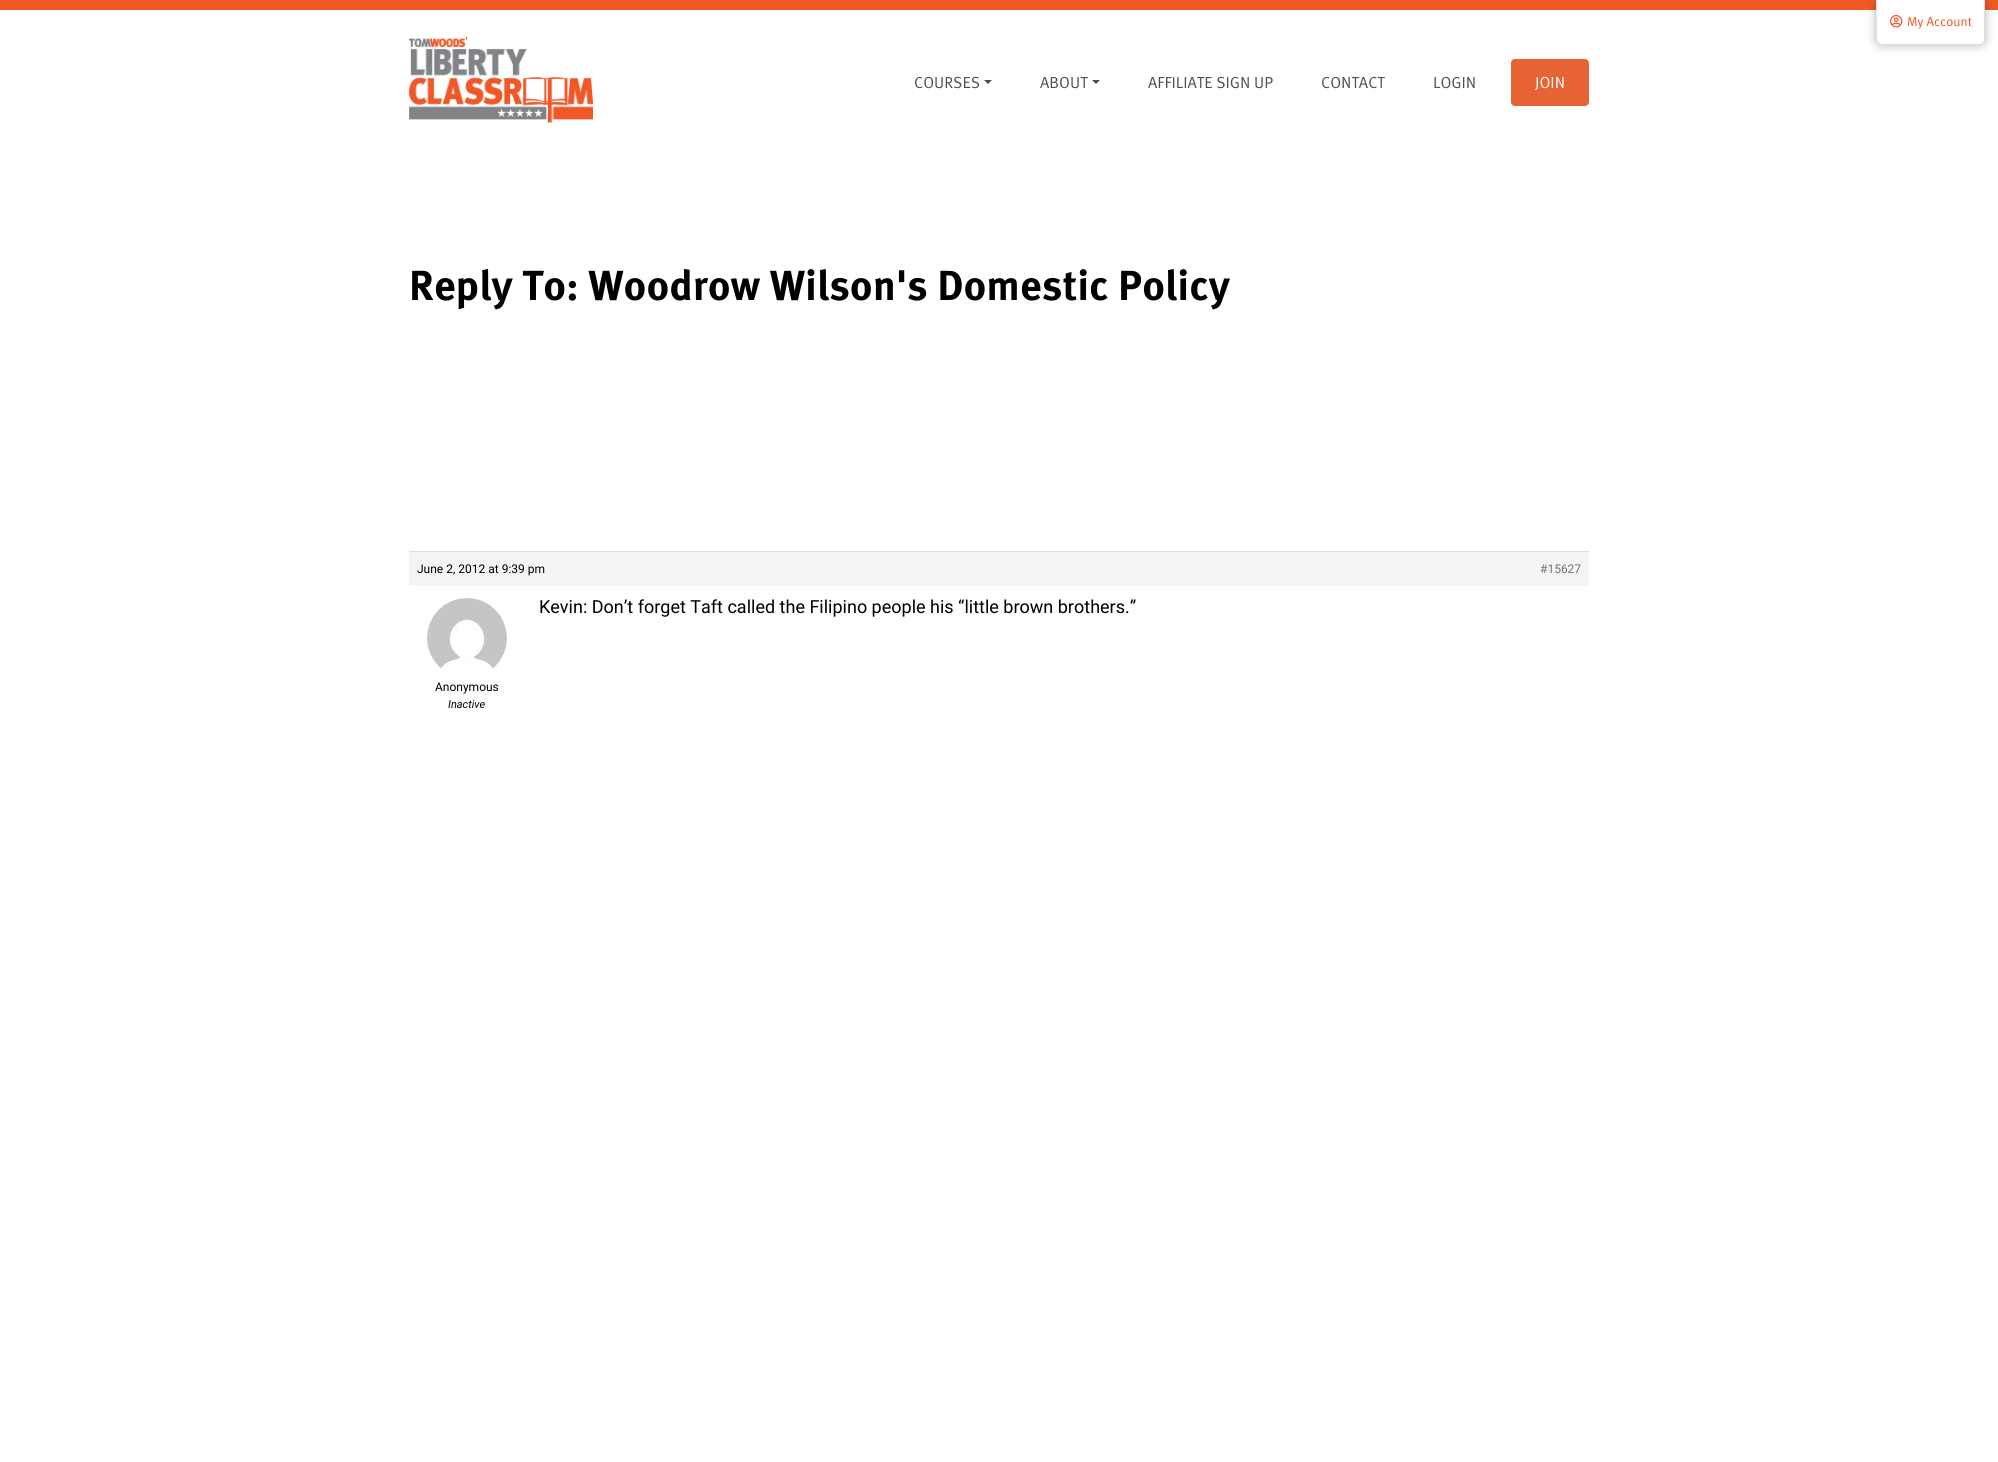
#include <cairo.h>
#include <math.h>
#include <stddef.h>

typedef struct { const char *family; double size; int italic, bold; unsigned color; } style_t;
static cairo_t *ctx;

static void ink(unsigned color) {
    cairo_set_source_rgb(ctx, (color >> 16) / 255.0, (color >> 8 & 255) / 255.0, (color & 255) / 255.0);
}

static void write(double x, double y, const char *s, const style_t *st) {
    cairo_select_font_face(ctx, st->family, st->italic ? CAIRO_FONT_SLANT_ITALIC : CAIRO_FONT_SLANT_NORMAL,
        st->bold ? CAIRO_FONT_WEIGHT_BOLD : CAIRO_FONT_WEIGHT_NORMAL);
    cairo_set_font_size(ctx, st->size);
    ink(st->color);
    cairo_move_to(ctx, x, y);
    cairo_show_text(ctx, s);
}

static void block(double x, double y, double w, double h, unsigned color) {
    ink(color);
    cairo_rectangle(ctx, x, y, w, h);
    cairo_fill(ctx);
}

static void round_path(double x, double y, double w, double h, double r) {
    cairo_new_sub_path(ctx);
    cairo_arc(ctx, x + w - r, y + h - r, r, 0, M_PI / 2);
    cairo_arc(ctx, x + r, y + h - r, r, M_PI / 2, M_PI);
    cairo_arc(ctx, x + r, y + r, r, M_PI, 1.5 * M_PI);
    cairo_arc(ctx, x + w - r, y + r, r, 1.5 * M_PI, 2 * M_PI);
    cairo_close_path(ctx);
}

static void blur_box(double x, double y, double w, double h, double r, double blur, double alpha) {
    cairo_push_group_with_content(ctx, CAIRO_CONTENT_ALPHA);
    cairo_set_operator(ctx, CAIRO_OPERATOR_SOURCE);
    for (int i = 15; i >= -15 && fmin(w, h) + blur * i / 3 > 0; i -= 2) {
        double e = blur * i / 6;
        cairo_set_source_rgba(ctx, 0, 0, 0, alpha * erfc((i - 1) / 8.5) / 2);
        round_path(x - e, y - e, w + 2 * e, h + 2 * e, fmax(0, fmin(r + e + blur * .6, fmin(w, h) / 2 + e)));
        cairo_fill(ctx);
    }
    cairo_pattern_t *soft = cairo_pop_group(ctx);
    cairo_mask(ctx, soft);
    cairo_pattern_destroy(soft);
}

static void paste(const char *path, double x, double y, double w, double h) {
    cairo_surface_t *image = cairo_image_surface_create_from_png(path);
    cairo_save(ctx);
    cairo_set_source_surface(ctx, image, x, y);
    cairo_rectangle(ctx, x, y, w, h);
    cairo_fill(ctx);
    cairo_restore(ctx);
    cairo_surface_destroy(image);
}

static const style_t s1 = {"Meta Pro", 13, 0, 0, 0xf15828};
static const style_t s2 = {"Meta Pro", 16, 0, 0, 0x4d4d4d};
static const style_t s3 = {"Meta Pro", 16, 0, 0, 0xffffff};
static const style_t s4 = {"Meta Pro", 42, 0, 1, 0x000000};
static const style_t s5 = {"Roboto", 12, 0, 0, 0x000000};
static const style_t s6 = {"Roboto", 12, 0, 0, 0x707070};
static const style_t s7 = {"Roboto", 18, 0, 0, 0x000000};
static const style_t s8 = {"Roboto", 11, 1, 0, 0x000000};

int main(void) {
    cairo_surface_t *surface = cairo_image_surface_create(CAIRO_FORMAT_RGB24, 1998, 1462);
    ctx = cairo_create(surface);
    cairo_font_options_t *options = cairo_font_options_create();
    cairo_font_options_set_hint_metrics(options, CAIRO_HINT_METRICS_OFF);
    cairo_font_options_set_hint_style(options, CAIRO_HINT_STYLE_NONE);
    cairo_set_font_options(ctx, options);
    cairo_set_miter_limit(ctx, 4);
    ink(0xffffff);
    cairo_paint(ctx);
    block(0, 0, 1998, 10, 0xf15828);
    paste("pic1.png", 409, 37, 184, 86);
    ink(0x000000);
    blur_box(1876, -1, 109, 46, 6, 5, 0.3);
    ink(0xffffff);
    cairo_new_path(ctx);
    cairo_move_to(ctx, 1876.5, -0.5);
    cairo_line_to(ctx, 1984.5, -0.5);
    cairo_line_to(ctx, 1984.5, 39);
    cairo_curve_to(ctx, 1984.5, 42, 1982, 44.5, 1979, 44.5);
    cairo_line_to(ctx, 1882, 44.5);
    cairo_curve_to(ctx, 1879, 44.5, 1876.5, 42, 1876.5, 39);
    cairo_close_path(ctx);
    cairo_fill_preserve(ctx);
    ink(0xe0e0e0);
    cairo_set_line_width(ctx, 1);
    cairo_stroke(ctx);
    paste("pic2.png", 1890, 15, 13, 13);
    write(1907, 26, "My Account", &s1);
    write(914, 88, "COURSES", &s2);
    cairo_new_path(ctx);
    cairo_move_to(ctx, 984, 80);
    cairo_line_to(ctx, 992, 80);
    cairo_line_to(ctx, 988, 84);
    cairo_close_path(ctx);
    cairo_fill(ctx);
    write(1040, 88, "ABOUT", &s2);
    cairo_new_path(ctx);
    cairo_move_to(ctx, 1092, 80);
    cairo_line_to(ctx, 1100, 80);
    cairo_line_to(ctx, 1096, 84);
    cairo_close_path(ctx);
    cairo_fill(ctx);
    write(1148, 88, "AFFILIATE SIGN UP", &s2);
    write(1321, 88, "CONTACT", &s2);
    write(1433, 88, "LOGIN", &s2);
    ink(0xe66333);
    round_path(1511, 59, 78, 47, 4);
    cairo_fill(ctx);
    write(1535, 88, "JOIN", &s3);
    write(409, 300, "Reply To: Woodrow Wilson's Domestic Policy", &s4);
    block(409, 552, 1180, 34, 0xf4f4f4);
    block(409, 551, 1180, 1, 0xdddddd);
    write(417, 573, "June 2, 2012 at 9:39 pm", &s5);
    write(1540, 573, "#15627", &s6);
    write(539, 613, "Kevin: Don’t forget Taft called the Filipino people his “little brown brothers.”", &s7);
    paste("pic3.png", 427, 598, 80, 71);
    write(435, 691, "Anonymous", &s5);
    write(448, 708, "Inactive", &s8);
    cairo_surface_write_to_png(surface, "screenshot.png");
    cairo_font_options_destroy(options);
    cairo_destroy(ctx);
    cairo_surface_destroy(surface);
    return 0;
}
